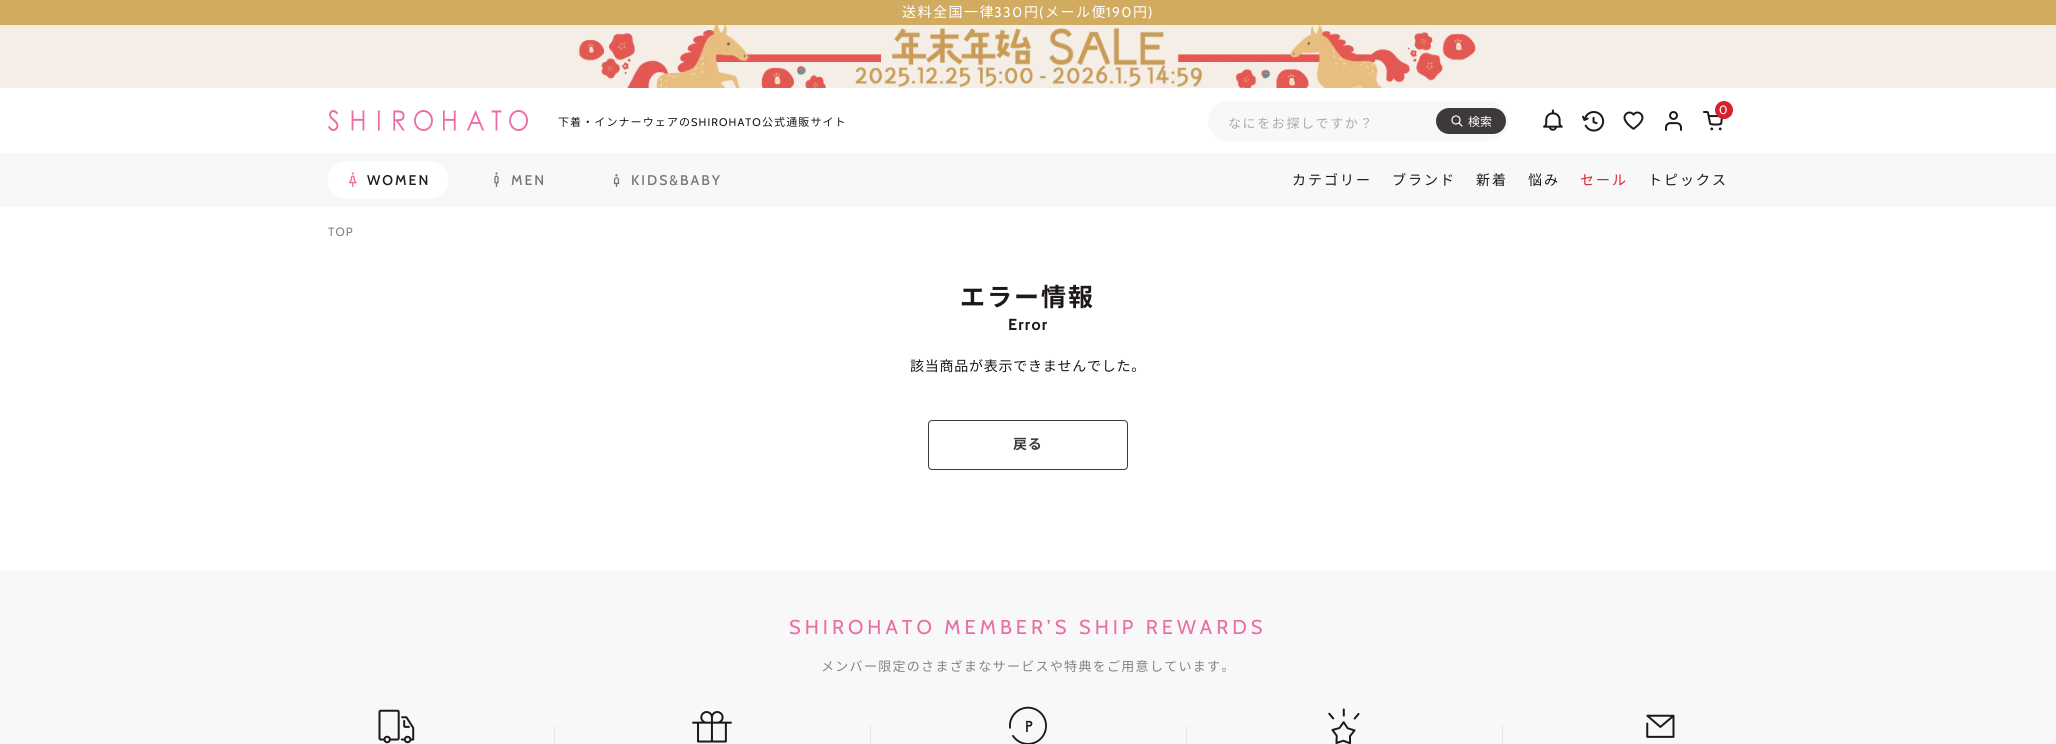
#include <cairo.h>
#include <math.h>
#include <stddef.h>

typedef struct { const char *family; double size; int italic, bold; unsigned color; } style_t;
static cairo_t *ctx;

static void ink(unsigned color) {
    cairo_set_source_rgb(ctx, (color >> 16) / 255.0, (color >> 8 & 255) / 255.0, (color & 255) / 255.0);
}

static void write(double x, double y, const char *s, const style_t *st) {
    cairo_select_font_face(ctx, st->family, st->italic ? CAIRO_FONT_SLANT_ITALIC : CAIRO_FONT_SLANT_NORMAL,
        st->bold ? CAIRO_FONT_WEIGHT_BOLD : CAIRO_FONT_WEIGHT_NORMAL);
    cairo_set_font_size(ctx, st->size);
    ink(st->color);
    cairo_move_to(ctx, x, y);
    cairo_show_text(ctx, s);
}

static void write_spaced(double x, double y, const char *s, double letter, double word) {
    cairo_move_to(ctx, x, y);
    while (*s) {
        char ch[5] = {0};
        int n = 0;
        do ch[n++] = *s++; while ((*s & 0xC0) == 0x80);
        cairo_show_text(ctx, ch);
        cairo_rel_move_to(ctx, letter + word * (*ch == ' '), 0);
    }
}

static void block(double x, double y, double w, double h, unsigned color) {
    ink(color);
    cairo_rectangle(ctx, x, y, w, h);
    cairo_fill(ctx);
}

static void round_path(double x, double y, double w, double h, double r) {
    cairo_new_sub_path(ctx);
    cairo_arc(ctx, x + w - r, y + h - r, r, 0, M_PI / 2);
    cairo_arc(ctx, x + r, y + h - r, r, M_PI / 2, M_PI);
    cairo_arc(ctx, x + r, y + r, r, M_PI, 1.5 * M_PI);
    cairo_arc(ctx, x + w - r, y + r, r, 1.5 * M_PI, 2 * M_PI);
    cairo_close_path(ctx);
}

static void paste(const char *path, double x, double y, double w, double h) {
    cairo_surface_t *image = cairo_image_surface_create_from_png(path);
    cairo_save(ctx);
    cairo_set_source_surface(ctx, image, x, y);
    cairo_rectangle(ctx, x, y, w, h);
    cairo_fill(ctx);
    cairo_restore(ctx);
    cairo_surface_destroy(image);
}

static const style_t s1 = {"Cabin", 12, 0, 0, 0xffffff};
static const style_t s2 = {"Noto Sans JP", 12, 0, 0, 0xffffff};

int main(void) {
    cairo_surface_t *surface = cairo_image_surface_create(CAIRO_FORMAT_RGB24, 2056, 744);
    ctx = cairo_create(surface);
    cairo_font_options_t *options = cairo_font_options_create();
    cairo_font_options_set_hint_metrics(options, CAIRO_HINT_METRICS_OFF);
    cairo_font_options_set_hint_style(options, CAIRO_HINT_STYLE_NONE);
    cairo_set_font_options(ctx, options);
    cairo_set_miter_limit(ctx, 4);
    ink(0xffffff);
    cairo_paint(ctx);
    block(0, 0, 2056, 25, 0xd1ab60);
    cairo_select_font_face(ctx, "Noto Sans JP", CAIRO_FONT_SLANT_NORMAL, CAIRO_FONT_WEIGHT_NORMAL);
    cairo_set_font_size(ctx, 14);
    ink(0xffffff);
    write_spaced(902, 17, "送料全国一律", 1.5, 0);
    cairo_select_font_face(ctx, "Cabin", CAIRO_FONT_SLANT_NORMAL, CAIRO_FONT_WEIGHT_NORMAL);
    write_spaced(994, 17, "330", 1.5, 0);
    cairo_select_font_face(ctx, "Noto Sans JP", CAIRO_FONT_SLANT_NORMAL, CAIRO_FONT_WEIGHT_NORMAL);
    write_spaced(1024, 17, "円", 1.5, 0);
    cairo_select_font_face(ctx, "Cabin", CAIRO_FONT_SLANT_NORMAL, CAIRO_FONT_WEIGHT_NORMAL);
    write_spaced(1039, 17, "(", 1.5, 0);
    cairo_select_font_face(ctx, "Noto Sans JP", CAIRO_FONT_SLANT_NORMAL, CAIRO_FONT_WEIGHT_NORMAL);
    write_spaced(1045, 17, "メール便", 1.5, 0);
    cairo_select_font_face(ctx, "Cabin", CAIRO_FONT_SLANT_NORMAL, CAIRO_FONT_WEIGHT_NORMAL);
    write_spaced(1106, 17, "190", 1.5, 0);
    cairo_select_font_face(ctx, "Noto Sans JP", CAIRO_FONT_SLANT_NORMAL, CAIRO_FONT_WEIGHT_NORMAL);
    write_spaced(1133, 17, "円", 1.5, 0);
    cairo_select_font_face(ctx, "Cabin", CAIRO_FONT_SLANT_NORMAL, CAIRO_FONT_WEIGHT_NORMAL);
    write_spaced(1148, 17, ")", 1.5, 0);
    block(0, 25, 2056, 63, 0xf5eee6);
    paste("pic1.png", 578, 25, 898, 63);
    paste("pic2.png", 328, 110, 200, 21);
    cairo_select_font_face(ctx, "Noto Sans JP", CAIRO_FONT_SLANT_NORMAL, CAIRO_FONT_WEIGHT_NORMAL);
    cairo_set_font_size(ctx, 11);
    ink(0x1d181a);
    write_spaced(558, 126, "下着・インナーウェアの", 1.1, 0);
    cairo_select_font_face(ctx, "Cabin", CAIRO_FONT_SLANT_NORMAL, CAIRO_FONT_WEIGHT_NORMAL);
    write_spaced(691, 126, "SHIROHATO", 1.1, 0);
    cairo_select_font_face(ctx, "Noto Sans JP", CAIRO_FONT_SLANT_NORMAL, CAIRO_FONT_WEIGHT_NORMAL);
    write_spaced(762, 126, "公式通販サイト", 1.1, 0);
    paste("pic3.png", 1543, 109, 20, 22);
    paste("pic4.png", 1582, 111, 23, 21);
    paste("pic5.png", 1623, 111, 21, 19);
    paste("pic6.png", 1665, 111, 17, 20);
    paste("pic7.png", 1703, 111, 20, 20);
    ink(0xd5212f);
    cairo_arc(ctx, 1724, 110, 9, 0, 2 * M_PI);
    cairo_fill(ctx);
    write(1719, 114, "0", &s1);
    ink(0xf8f8f8);
    round_path(1208, 101, 300, 40, 20);
    cairo_fill(ctx);
    cairo_select_font_face(ctx, "Noto Sans JP", CAIRO_FONT_SLANT_NORMAL, CAIRO_FONT_WEIGHT_NORMAL);
    cairo_set_font_size(ctx, 13);
    ink(0xaaaaaa);
    write_spaced(1228, 128, "なにをお探しですか？", 1.6, 0);
    ink(0x3e393b);
    round_path(1436, 108, 70, 26, 13);
    cairo_fill(ctx);
    cairo_arc(ctx, 1456, 120, 4, 0, 2 * M_PI);
    ink(0xffffff);
    cairo_set_line_width(ctx, 1.2);
    cairo_stroke(ctx);
    cairo_new_path(ctx);
    cairo_move_to(ctx, 1459, 123);
    cairo_line_to(ctx, 1462, 126);
    cairo_set_line_cap(ctx, CAIRO_LINE_CAP_ROUND);
    cairo_stroke(ctx);
    write(1468, 126, "検索", &s2);
    block(0, 153, 2056, 54, 0xf8f8f8);
    ink(0xffffff);
    round_path(328, 161, 120, 38, 19);
    cairo_fill(ctx);
    paste("pic8.png", 348, 172, 9, 15);
    cairo_select_font_face(ctx, "Cabin Medium", CAIRO_FONT_SLANT_NORMAL, CAIRO_FONT_WEIGHT_NORMAL);
    cairo_set_font_size(ctx, 14);
    ink(0x1d181a);
    write_spaced(367, 185, "WOMEN", 2, 0);
    paste("pic9.png", 494, 172, 5, 15);
    ink(0x777777);
    write_spaced(511, 185, "MEN", 2, 0);
    paste("pic10.png", 613, 174, 7, 13);
    write_spaced(631, 185, "KIDS&BABY", 2, 0);
    cairo_select_font_face(ctx, "Noto Sans JP", CAIRO_FONT_SLANT_NORMAL, CAIRO_FONT_WEIGHT_NORMAL);
    ink(0x1d181a);
    write_spaced(1292, 185, "カテゴリー", 2, 0);
    write_spaced(1392, 185, "ブランド", 2, 0);
    write_spaced(1476, 185, "新着", 2, 0);
    write_spaced(1528, 185, "悩み", 2, 0);
    ink(0xd5212f);
    write_spaced(1580, 185, "セール", 2, 0);
    ink(0x1d181a);
    write_spaced(1648, 185, "トピックス", 2, 0);
    cairo_select_font_face(ctx, "Cabin", CAIRO_FONT_SLANT_NORMAL, CAIRO_FONT_WEIGHT_NORMAL);
    cairo_set_font_size(ctx, 12);
    ink(0x848484);
    write_spaced(328, 236, "TOP", 1, 0);
    cairo_select_font_face(ctx, "Noto Sans JP", CAIRO_FONT_SLANT_NORMAL, CAIRO_FONT_WEIGHT_BOLD);
    cairo_set_font_size(ctx, 25);
    ink(0x1d181a);
    write_spaced(960, 306, "エラー情報", 2, 0);
    cairo_select_font_face(ctx, "Cabin", CAIRO_FONT_SLANT_NORMAL, CAIRO_FONT_WEIGHT_BOLD);
    cairo_set_font_size(ctx, 16);
    write_spaced(1008, 330, "Error", 1.25, 0);
    cairo_select_font_face(ctx, "Noto Sans JP", CAIRO_FONT_SLANT_NORMAL, CAIRO_FONT_WEIGHT_NORMAL);
    cairo_set_font_size(ctx, 14);
    write_spaced(910, 371, "該当商品が表示できませんでした。", 0.75, 0);
    round_path(928.5, 420.5, 199, 49, 3.5);
    ink(0x3e393b);
    cairo_set_line_width(ctx, 1);
    cairo_set_line_cap(ctx, CAIRO_LINE_CAP_BUTT);
    cairo_stroke(ctx);
    cairo_select_font_face(ctx, "Noto Sans JP", CAIRO_FONT_SLANT_NORMAL, CAIRO_FONT_WEIGHT_BOLD);
    write_spaced(1013, 449, "戻る", 0.75, 0);
    block(0, 570, 2056, 174, 0xf8f8f8);
    cairo_select_font_face(ctx, "Cabin", CAIRO_FONT_SLANT_NORMAL, CAIRO_FONT_WEIGHT_NORMAL);
    cairo_set_font_size(ctx, 20);
    ink(0xeb6da5);
    write_spaced(789, 634, "SHIROHATO MEMBER’S SHIP REWARDS", 4, 0);
    cairo_select_font_face(ctx, "Noto Sans JP", CAIRO_FONT_SLANT_NORMAL, CAIRO_FONT_WEIGHT_NORMAL);
    cairo_set_font_size(ctx, 13);
    ink(0x848484);
    write_spaced(821, 671, "メンバー限定のさまざまなサービスや特典をご用意しています。", 1.3, 0);
    paste("pic11.png", 378, 709, 37, 35);
    block(554, 726, 1, 18, 0xe5e5e5);
    paste("pic12.png", 692, 711, 40, 32);
    block(870, 726, 1, 18, 0xe5e5e5);
    paste("pic13.png", 1009, 706, 38, 38);
    block(1186, 726, 1, 18, 0xe5e5e5);
    paste("pic14.png", 1328, 708, 32, 36);
    block(1502, 726, 1, 18, 0xe5e5e5);
    paste("pic15.png", 1646, 714, 29, 24);
    cairo_surface_write_to_png(surface, "screenshot.png");
    cairo_font_options_destroy(options);
    cairo_destroy(ctx);
    cairo_surface_destroy(surface);
    return 0;
}
